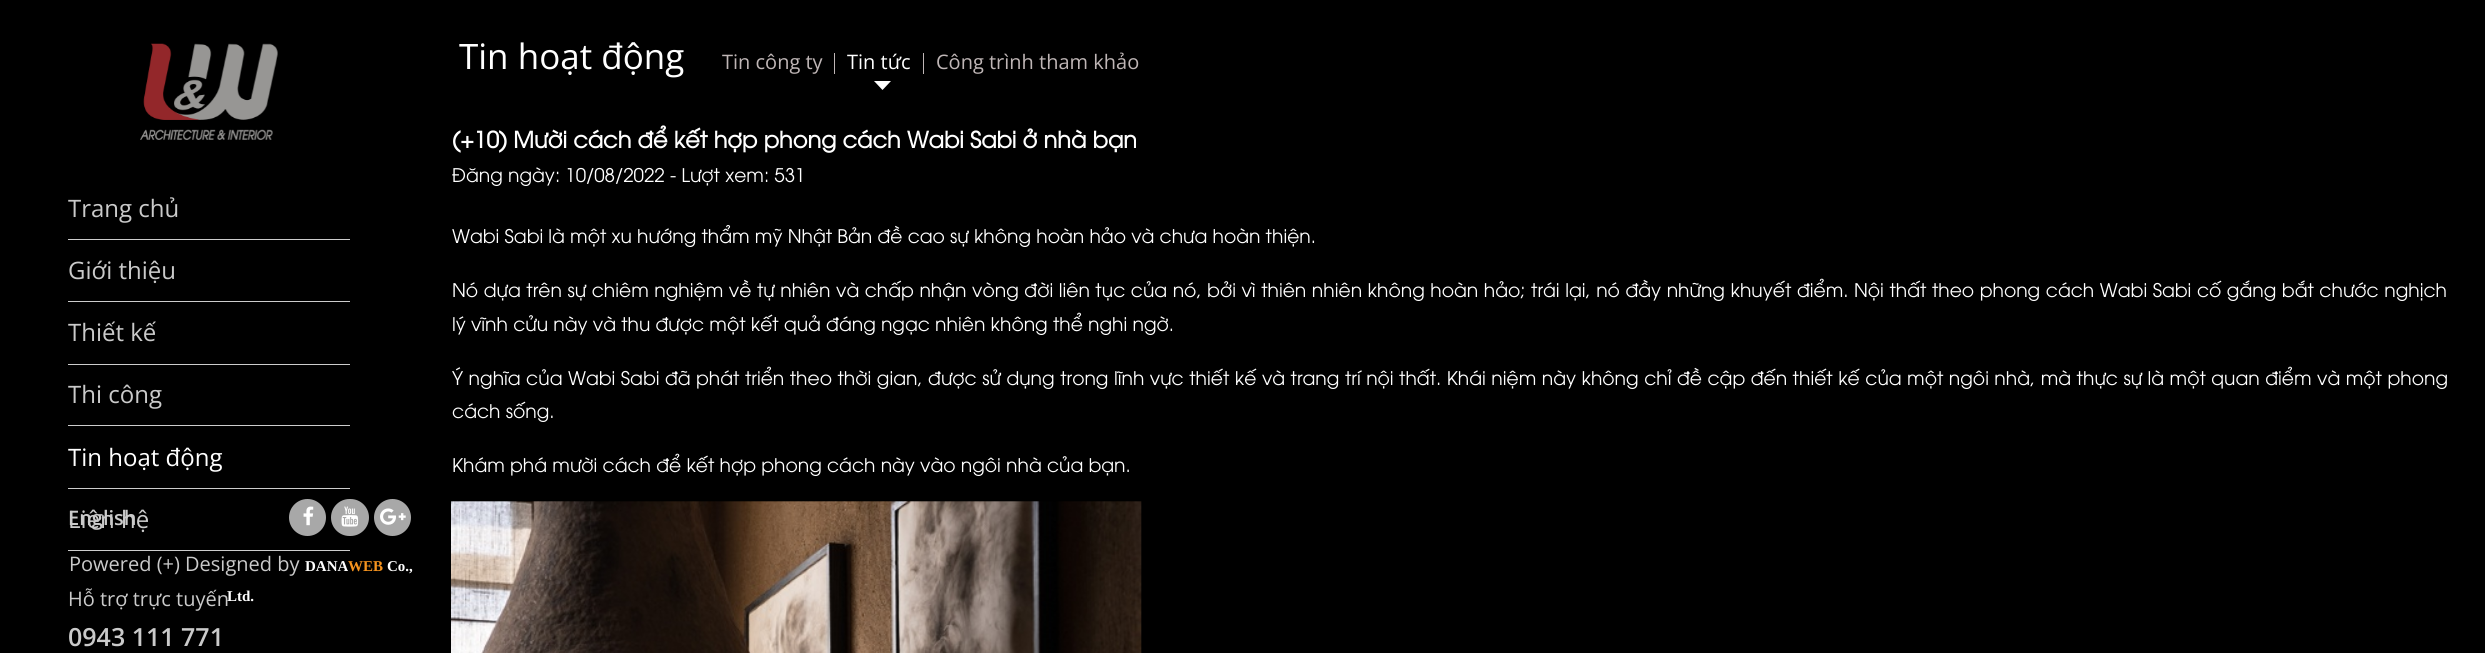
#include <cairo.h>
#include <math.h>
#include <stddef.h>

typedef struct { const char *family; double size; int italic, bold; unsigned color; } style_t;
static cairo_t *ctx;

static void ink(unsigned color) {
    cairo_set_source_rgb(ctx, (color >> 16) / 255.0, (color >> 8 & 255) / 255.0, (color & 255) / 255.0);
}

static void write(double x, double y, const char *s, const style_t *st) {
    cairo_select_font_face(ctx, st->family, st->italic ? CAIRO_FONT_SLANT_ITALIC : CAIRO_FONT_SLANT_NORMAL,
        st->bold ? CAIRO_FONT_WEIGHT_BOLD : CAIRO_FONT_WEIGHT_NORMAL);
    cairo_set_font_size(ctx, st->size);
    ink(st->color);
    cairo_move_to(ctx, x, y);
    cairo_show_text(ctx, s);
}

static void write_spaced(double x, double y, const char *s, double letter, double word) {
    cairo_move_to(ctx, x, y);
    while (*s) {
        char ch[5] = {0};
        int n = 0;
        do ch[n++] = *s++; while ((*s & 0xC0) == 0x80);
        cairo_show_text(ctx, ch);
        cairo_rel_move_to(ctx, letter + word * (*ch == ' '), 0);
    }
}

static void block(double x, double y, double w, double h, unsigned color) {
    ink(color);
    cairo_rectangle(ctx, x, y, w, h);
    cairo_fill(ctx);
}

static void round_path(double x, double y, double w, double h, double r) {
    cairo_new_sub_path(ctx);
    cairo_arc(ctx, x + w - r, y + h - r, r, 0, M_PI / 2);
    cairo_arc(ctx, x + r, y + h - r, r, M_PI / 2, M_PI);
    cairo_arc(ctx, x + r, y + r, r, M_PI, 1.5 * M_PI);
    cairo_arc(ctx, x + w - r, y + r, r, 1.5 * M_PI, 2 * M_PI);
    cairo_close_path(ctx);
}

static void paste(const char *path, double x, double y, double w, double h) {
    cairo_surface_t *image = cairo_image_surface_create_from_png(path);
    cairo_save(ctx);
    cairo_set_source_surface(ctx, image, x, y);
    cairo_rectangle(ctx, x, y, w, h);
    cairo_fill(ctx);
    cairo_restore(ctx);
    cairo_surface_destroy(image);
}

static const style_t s1 = {"Open Sans", 24, 0, 0, 0xcacaca};
static const style_t s2 = {"Open Sans", 24, 0, 0, 0xffffff};
static const style_t s3 = {"Open Sans", 20, 0, 0, 0xcacaca};
static const style_t s4 = {"Open Sans SemiBold", 25, 0, 0, 0xcacaca};
static const style_t s5 = {"Open Sans SemiBold", 20, 0, 0, 0xcacaca};
static const style_t s6 = {"Liberation Serif", 15, 0, 1, 0xffffff};
static const style_t s7 = {"Liberation Serif", 15, 0, 1, 0xf7941e};
static const style_t s8 = {"Open Sans", 35, 0, 0, 0xffffff};
static const style_t s9 = {"Open Sans", 20, 0, 0, 0xbfb6b6};
static const style_t s10 = {"Open Sans", 20, 0, 0, 0xffffff};
static const style_t s11 = {"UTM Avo", 22.5, 0, 1, 0xffffff};
static const style_t s12 = {"UTM Avo", 18.75, 0, 0, 0xffffff};

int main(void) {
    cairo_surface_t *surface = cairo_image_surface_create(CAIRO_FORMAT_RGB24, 2485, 653);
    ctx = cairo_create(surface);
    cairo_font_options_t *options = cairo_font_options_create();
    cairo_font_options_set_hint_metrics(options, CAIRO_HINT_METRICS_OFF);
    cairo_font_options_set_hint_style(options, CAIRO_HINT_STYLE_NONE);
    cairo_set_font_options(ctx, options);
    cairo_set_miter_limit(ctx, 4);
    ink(0x000000);
    cairo_paint(ctx);
    paste("pic1.png", 140, 43, 138, 97);
    block(68, 239, 282, 1, 0xcccccc);
    write(68, 217, "Trang chủ", &s1);
    block(68, 301, 282, 1, 0xcccccc);
    write(68, 279, "Giới thiệu", &s1);
    block(68, 364, 282, 1, 0xcccccc);
    write(68, 341, "Thiết kế", &s1);
    block(68, 425, 282, 1, 0xcccccc);
    write(68, 403, "Thi công", &s1);
    block(68, 488, 282, 1, 0xcccccc);
    write(68, 466, "Tin hoạt động", &s2);
    block(68, 550, 282, 1, 0xcccccc);
    write(68, 528, "Liên hệ", &s1);
    write(68, 606, "Hỗ trợ trực tuyến", &s3);
    write(68, 646, "0943 111 771", &s4);
    write(68, 525, "English", &s5);
    ink(0xa8a8a8);
    cairo_new_path(ctx);
    cairo_arc(ctx, 307.5, 517.5, 18.5, 0, 2 * M_PI);
    cairo_fill(ctx);
    paste("pic2.png", 303, 506, 11, 20);
    round_path(331, 499, 38, 37, 18.5);
    cairo_fill(ctx);
    paste("pic3.png", 341, 506, 18, 21);
    cairo_arc(ctx, 392.5, 517.5, 18.5, 0, 2 * M_PI);
    cairo_fill(ctx);
    paste("pic4.png", 380, 508, 26, 17);
    write(69, 571, "Powered (+) Designed by", &s3);
    write(305, 571, "DANA", &s6);
    write(348, 571, "WEB", &s7);
    write(387, 571, "Co.,", &s6);
    write(227, 601, "Ltd.", &s6);
    write(459, 69, "Tin hoạt động", &s8);
    write(722, 69, "Tin công ty", &s9);
    block(834, 53, 1, 21, 0xbfb6b6);
    write(847, 69, "Tin tức", &s10);
    block(923, 53, 1, 21, 0xbfb6b6);
    ink(0xffffff);
    cairo_new_path(ctx);
    cairo_move_to(ctx, 874, 81);
    cairo_line_to(ctx, 891, 81);
    cairo_line_to(ctx, 882.5, 90);
    cairo_close_path(ctx);
    cairo_fill(ctx);
    write(936, 69, "Công trình tham khảo", &s9);
    write(452, 148, "(+10) Mười cách để kết hợp phong cách Wabi Sabi ở nhà bạn", &s11);
    write(452, 182, "Đăng ngày: 10/08/2022 - Lượt xem: 531", &s12);
    write(452, 243, "Wabi Sabi là một xu hướng thẩm mỹ Nhật Bản đề cao sự không hoàn hảo và chưa hoàn thiện.", &s12);
    write_spaced(452, 297, "Nó dựa trên sự chiêm nghiệm về tự nhiên và chấp nhận vòng đời liên tục của nó, bởi vì thiên nhiên không hoàn hảo; trái lại, nó đầy những khuyết điểm. Nội thất theo phong cách Wabi Sabi cố gắng bắt chước nghịch", 0, 0.35);
    write(452, 331, "lý vĩnh cửu này và thu được một kết quả đáng ngạc nhiên không thể nghi ngờ.", &s12);
    write_spaced(452, 385, "Ý nghĩa của Wabi Sabi đã phát triển theo thời gian, được sử dụng trong lĩnh vực thiết kế và trang trí nội thất. Khái niệm này không chỉ đề cập đến thiết kế của một ngôi nhà, mà thực sự là một quan điểm và một phong", 0, 0.3);
    write(452, 418, "cách sống.", &s12);
    write(452, 472, "Khám phá mười cách để kết hợp phong cách này vào ngôi nhà của bạn.", &s12);
    paste("pic5.png", 451, 501, 691, 152);
    cairo_surface_write_to_png(surface, "screenshot.png");
    cairo_font_options_destroy(options);
    cairo_destroy(ctx);
    cairo_surface_destroy(surface);
    return 0;
}
